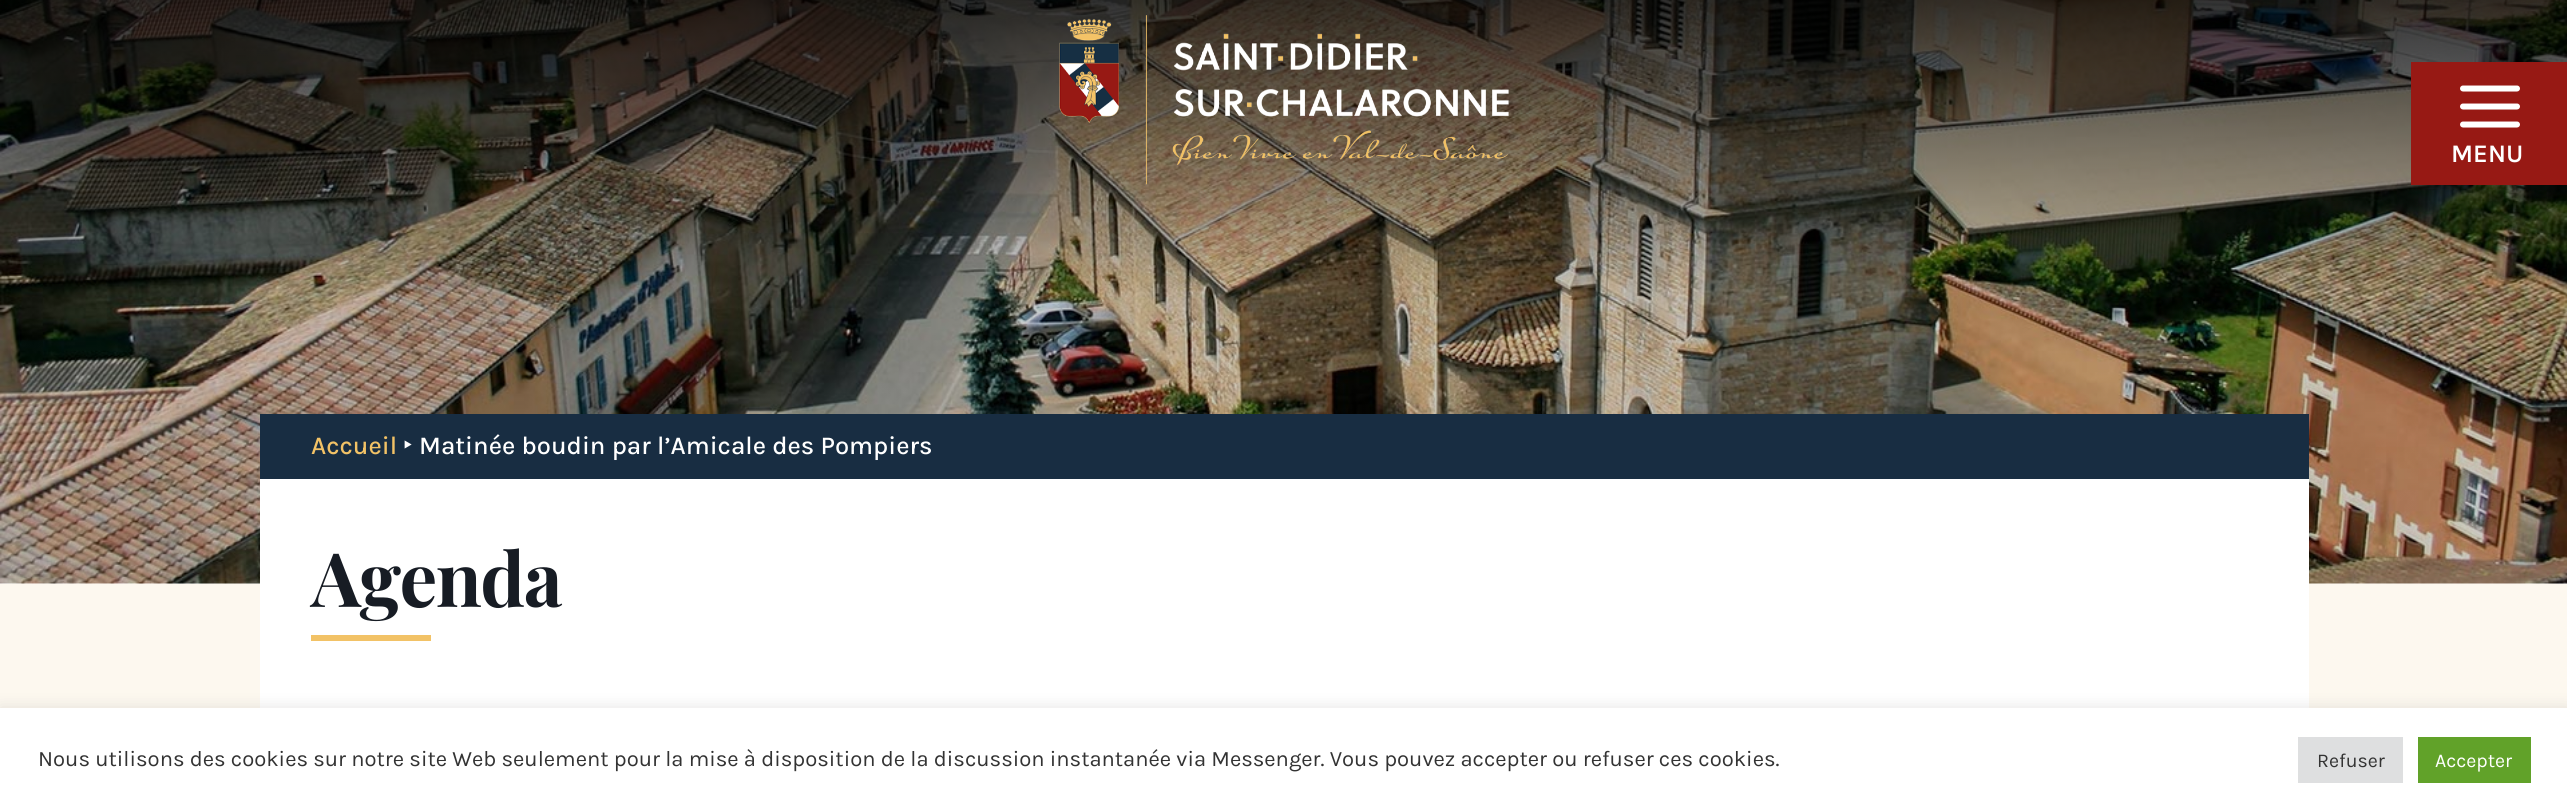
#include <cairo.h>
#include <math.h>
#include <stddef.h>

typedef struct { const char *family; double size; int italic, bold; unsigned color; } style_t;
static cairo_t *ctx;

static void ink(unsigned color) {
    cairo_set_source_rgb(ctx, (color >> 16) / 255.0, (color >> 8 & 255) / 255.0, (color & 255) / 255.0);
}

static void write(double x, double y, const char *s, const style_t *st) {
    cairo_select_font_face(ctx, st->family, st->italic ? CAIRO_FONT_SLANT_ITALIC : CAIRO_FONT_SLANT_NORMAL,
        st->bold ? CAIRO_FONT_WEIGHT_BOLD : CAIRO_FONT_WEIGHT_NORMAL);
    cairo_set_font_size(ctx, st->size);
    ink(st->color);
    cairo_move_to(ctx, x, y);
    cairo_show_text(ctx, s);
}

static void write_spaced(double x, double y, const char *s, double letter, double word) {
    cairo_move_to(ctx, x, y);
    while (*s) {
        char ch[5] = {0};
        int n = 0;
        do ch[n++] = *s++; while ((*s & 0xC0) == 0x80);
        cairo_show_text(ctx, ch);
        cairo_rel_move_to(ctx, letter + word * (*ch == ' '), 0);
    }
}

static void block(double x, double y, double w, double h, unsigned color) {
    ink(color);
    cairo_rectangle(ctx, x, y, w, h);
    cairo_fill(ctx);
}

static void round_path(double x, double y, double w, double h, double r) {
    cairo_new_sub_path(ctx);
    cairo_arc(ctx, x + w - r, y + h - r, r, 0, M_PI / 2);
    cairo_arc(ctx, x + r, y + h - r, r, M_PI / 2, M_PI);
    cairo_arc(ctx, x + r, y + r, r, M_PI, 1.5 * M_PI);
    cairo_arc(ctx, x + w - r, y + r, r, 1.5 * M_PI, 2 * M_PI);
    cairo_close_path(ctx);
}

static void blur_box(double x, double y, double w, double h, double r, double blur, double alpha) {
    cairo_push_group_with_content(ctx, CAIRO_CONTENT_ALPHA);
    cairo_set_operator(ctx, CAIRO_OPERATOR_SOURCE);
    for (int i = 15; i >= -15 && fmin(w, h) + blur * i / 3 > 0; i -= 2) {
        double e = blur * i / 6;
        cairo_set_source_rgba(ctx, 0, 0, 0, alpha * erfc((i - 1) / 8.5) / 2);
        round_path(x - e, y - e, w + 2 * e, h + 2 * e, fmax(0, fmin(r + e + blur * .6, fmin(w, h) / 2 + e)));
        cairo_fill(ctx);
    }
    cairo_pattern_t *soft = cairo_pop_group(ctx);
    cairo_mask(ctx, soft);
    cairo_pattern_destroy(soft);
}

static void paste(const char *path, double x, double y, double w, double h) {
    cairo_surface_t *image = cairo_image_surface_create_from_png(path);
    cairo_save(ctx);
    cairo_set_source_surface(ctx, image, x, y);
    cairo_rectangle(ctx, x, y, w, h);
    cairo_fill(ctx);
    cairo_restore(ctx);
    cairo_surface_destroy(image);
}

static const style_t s1 = {"Karla SemiBold", 25.5, 0, 0, 0xffffff};
static const style_t s2 = {"Karla Medium", 25.5, 0, 0, 0xf2c266};
static const style_t s3 = {"Noto Sans Medium", 25.5, 0, 0, 0xffffff};
static const style_t s4 = {"Karla Medium", 25.5, 0, 0, 0xffffff};
static const style_t s5 = {"Karla", 22, 0, 0, 0x333333};
static const style_t s6 = {"Karla", 19.5, 0, 0, 0x333333};
static const style_t s7 = {"Karla", 19.5, 0, 0, 0xffffff};

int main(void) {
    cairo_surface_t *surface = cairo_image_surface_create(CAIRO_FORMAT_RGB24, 2567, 811);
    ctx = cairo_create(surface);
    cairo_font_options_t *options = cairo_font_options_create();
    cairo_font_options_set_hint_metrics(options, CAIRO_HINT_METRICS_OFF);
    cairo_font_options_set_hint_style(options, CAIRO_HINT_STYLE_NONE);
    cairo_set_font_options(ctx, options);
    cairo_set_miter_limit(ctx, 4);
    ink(0xffffff);
    cairo_paint(ctx);
    paste("pic2.png", 0, 0, 2567, 584);
    block(2411, 62, 156, 123, 0x971914);
    paste("pic1.png", 2460, 85, 60, 43);
    write(2451, 162, "MENU", &s1);
    paste("pic3.png", 1059, 15, 450, 170);
    block(0, 584, 2567, 124, 0xfdf8ef);
    block(260, 414, 2049, 65, 0x182d42);
    write(311, 454, "Accueil", &s2);
    write(403, 454, "‣", &s3);
    write(419, 454, "Matinée boudin par l’Amicale des Pompiers", &s4);
    block(260, 479, 2049, 229, 0xffffff);
    cairo_select_font_face(ctx, "Playfair Display", CAIRO_FONT_SLANT_NORMAL, CAIRO_FONT_WEIGHT_BOLD);
    cairo_set_font_size(ctx, 75);
    ink(0x171c24);
    write_spaced(311, 607, "Agenda", -1.5, 0);
    block(311, 635, 120, 6, 0xf2c266);
    ink(0xacabab);
    blur_box(0, 707, 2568, 103, 0, 7.5, 0.3);
    block(0, 708, 2567, 103, 0xffffff);
    write(38, 766, "Nous utilisons des cookies sur notre site Web seulement pour la mise à disposition de la discussion instantanée via Messenger. Vous pouvez accepter ou refuser ces cookies.", &s5);
    block(2298, 737, 105, 46, 0xdedfe0);
    write(2317, 767, "Refuser", &s6);
    block(2418, 737, 113, 46, 0x61a229);
    write(2435, 767, "Accepter", &s7);
    cairo_surface_write_to_png(surface, "screenshot.png");
    cairo_font_options_destroy(options);
    cairo_destroy(ctx);
    cairo_surface_destroy(surface);
    return 0;
}
